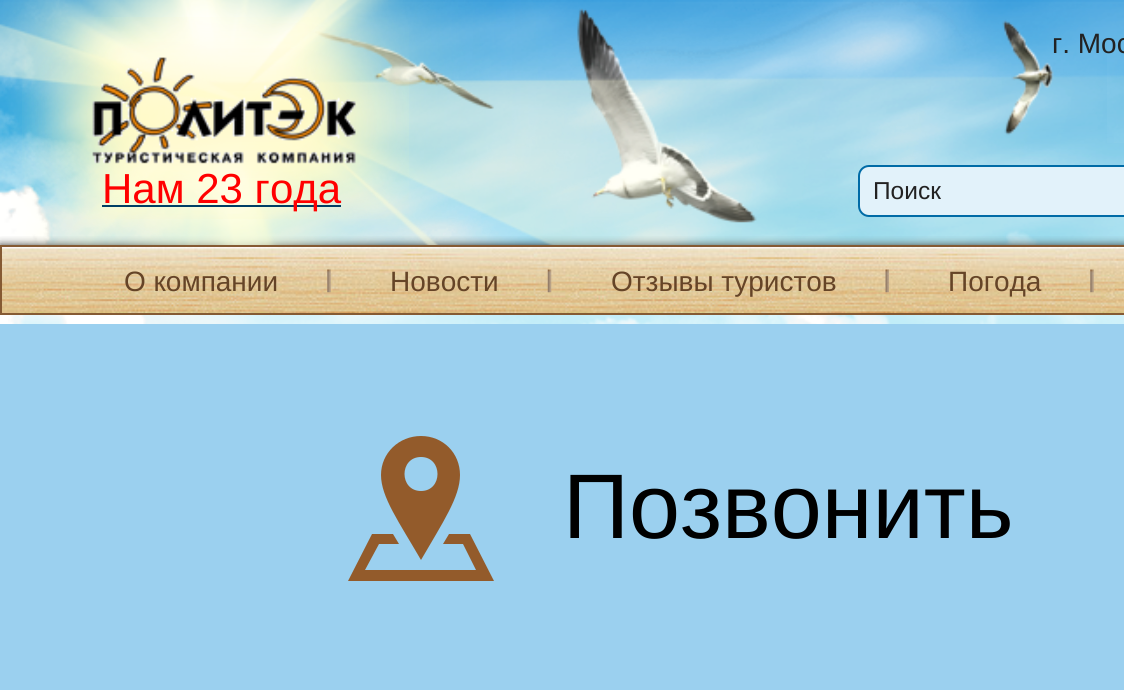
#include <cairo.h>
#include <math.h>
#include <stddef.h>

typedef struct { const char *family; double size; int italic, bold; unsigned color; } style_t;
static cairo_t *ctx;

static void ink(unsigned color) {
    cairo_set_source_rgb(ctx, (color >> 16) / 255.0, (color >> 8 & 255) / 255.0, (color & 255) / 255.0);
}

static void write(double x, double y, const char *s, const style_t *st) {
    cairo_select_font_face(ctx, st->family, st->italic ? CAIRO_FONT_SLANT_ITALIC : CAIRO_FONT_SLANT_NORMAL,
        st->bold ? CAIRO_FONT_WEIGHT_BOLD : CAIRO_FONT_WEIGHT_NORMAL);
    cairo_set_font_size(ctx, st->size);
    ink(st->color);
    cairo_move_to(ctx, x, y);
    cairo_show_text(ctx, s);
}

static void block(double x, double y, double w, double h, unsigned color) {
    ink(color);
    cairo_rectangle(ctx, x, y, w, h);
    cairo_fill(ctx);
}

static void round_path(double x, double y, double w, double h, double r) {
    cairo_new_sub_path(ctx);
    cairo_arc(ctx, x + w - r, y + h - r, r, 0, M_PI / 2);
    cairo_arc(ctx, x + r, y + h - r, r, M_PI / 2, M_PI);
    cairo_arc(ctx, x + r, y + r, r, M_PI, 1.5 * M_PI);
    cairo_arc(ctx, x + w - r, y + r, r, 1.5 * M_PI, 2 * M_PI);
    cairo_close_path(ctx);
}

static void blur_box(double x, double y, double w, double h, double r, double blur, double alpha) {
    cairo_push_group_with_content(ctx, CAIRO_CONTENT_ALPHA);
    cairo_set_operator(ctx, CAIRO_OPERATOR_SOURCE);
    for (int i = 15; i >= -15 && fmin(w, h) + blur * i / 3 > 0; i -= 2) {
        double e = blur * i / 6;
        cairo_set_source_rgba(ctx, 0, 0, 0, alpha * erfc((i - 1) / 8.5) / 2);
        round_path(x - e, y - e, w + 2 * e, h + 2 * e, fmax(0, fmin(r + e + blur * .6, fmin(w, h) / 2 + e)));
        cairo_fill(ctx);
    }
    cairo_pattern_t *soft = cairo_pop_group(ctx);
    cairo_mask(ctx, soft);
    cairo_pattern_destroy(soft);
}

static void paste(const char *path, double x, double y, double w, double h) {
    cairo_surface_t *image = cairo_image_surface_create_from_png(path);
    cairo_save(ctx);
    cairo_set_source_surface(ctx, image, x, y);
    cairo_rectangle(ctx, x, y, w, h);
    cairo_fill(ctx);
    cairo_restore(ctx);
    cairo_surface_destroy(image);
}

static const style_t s1 = {"Liberation Sans", 28, 0, 0, 0x222222};
static const style_t s2 = {"Liberation Sans", 42, 0, 0, 0xff0000};
static const style_t s3 = {"Liberation Sans", 24.5, 0, 0, 0x222222};
static const style_t s4 = {"Liberation Sans", 28, 0, 0, 0x654427};
static const style_t s5 = {"Liberation Sans", 91.75, 0, 0, 0x000000};

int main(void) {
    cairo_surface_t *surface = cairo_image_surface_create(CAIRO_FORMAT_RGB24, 1124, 690);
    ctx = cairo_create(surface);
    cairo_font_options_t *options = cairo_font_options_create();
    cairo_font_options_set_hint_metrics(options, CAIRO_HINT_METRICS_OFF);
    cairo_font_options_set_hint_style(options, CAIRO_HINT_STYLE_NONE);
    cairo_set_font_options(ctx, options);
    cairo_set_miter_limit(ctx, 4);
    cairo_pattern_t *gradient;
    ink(0xffffff);
    cairo_paint(ctx);
    gradient = cairo_pattern_create_linear(1067, 0, 1068, 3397);
    cairo_pattern_add_color_stop_rgba(gradient, 0, 0.008, 0.514, 0.831, 1);
    cairo_pattern_add_color_stop_rgba(gradient, 0.15, 0.333, 0.922, 0.961, 1);
    cairo_pattern_add_color_stop_rgba(gradient, 0.31, 0.816, 0.992, 0.976, 1);
    cairo_pattern_add_color_stop_rgba(gradient, 1, 1, 1, 1, 1);
    cairo_set_source(ctx, gradient);
    cairo_pattern_destroy(gradient);
    cairo_rectangle(ctx, 0, 0, 1124, 324);
    cairo_fill(ctx);
    paste("pic1.png", 0, 0, 1124, 324);
    paste("pic2.png", 315, 8, 739, 215);
    cairo_save(ctx);
    cairo_rectangle(ctx, 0, 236, 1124, 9);
    cairo_clip(ctx);
    ink(0x333333);
    blur_box(0, 245, 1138, 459, 0, 4.5, 1);
    cairo_restore(ctx);
    paste("pic3.png", 0, 0, 1124, 245);
    paste("pic4.png", 22, 17, 387, 202);
    paste("pic5.png", 1107, 41, 17, 102);
    write(1052, 53, "г. Мос", &s1);
    block(102, 205, 239, 2, 0x003f65);
    write(102, 203, "Нам 23 года", &s2);
    ink(0xe2f2fa);
    round_path(859, 166, 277, 50, 10);
    cairo_fill_preserve(ctx);
    ink(0x006ba6);
    cairo_stroke(ctx);
    write(873, 199, "Поиск", &s3);
    paste("pic6.png", 2, 247, 1122, 66);
    cairo_rectangle(ctx, 1, 246, 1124, 68);
    ink(0x855a33);
    cairo_stroke(ctx);
    paste("pic7.png", 327, 269, 4, 24);
    write(124, 291, "О компании", &s4);
    paste("pic8.png", 547, 269, 5, 24);
    write(390, 291, "Новости", &s4);
    paste("pic9.png", 885, 269, 4, 24);
    write(611, 291, "Отзывы туристов", &s4);
    paste("pic10.png", 1090, 269, 4, 24);
    write(948, 291, "Погода", &s4);
    cairo_set_source_rgba(ctx, 1, 1, 1, 0.6);
    cairo_rectangle(ctx, 9, 315, 1115, 9);
    cairo_fill(ctx);
    block(0, 324, 1124, 366, 0x9bd0ef);
    ink(0x935b2b);
    cairo_set_fill_rule(ctx, CAIRO_FILL_RULE_EVEN_ODD);
    cairo_new_path(ctx);
    cairo_move_to(ctx, 460, 475);
    cairo_curve_to(ctx, 460, 453, 443, 436, 421, 436);
    cairo_curve_to(ctx, 399, 436, 381, 453, 381, 475);
    cairo_curve_to(ctx, 381, 497, 399, 522, 421, 560);
    cairo_curve_to(ctx, 443, 522, 460, 497, 460, 475);
    cairo_close_path(ctx);
    cairo_move_to(ctx, 421, 457);
    cairo_curve_to(ctx, 443, 457, 443, 491, 421, 491);
    cairo_curve_to(ctx, 399, 491, 399, 457, 421, 457);
    cairo_close_path(ctx);
    cairo_move_to(ctx, 470, 534);
    cairo_line_to(ctx, 449, 534);
    cairo_line_to(ctx, 443, 544);
    cairo_line_to(ctx, 463, 544);
    cairo_line_to(ctx, 476, 570);
    cairo_line_to(ctx, 365, 570);
    cairo_line_to(ctx, 379, 544);
    cairo_line_to(ctx, 399, 544);
    cairo_line_to(ctx, 393, 534);
    cairo_line_to(ctx, 372, 534);
    cairo_line_to(ctx, 348, 581);
    cairo_line_to(ctx, 494, 581);
    cairo_close_path(ctx);
    cairo_fill(ctx);
    write(563, 538, "Позвонить", &s5);
    cairo_surface_write_to_png(surface, "screenshot.png");
    cairo_font_options_destroy(options);
    cairo_destroy(ctx);
    cairo_surface_destroy(surface);
    return 0;
}
